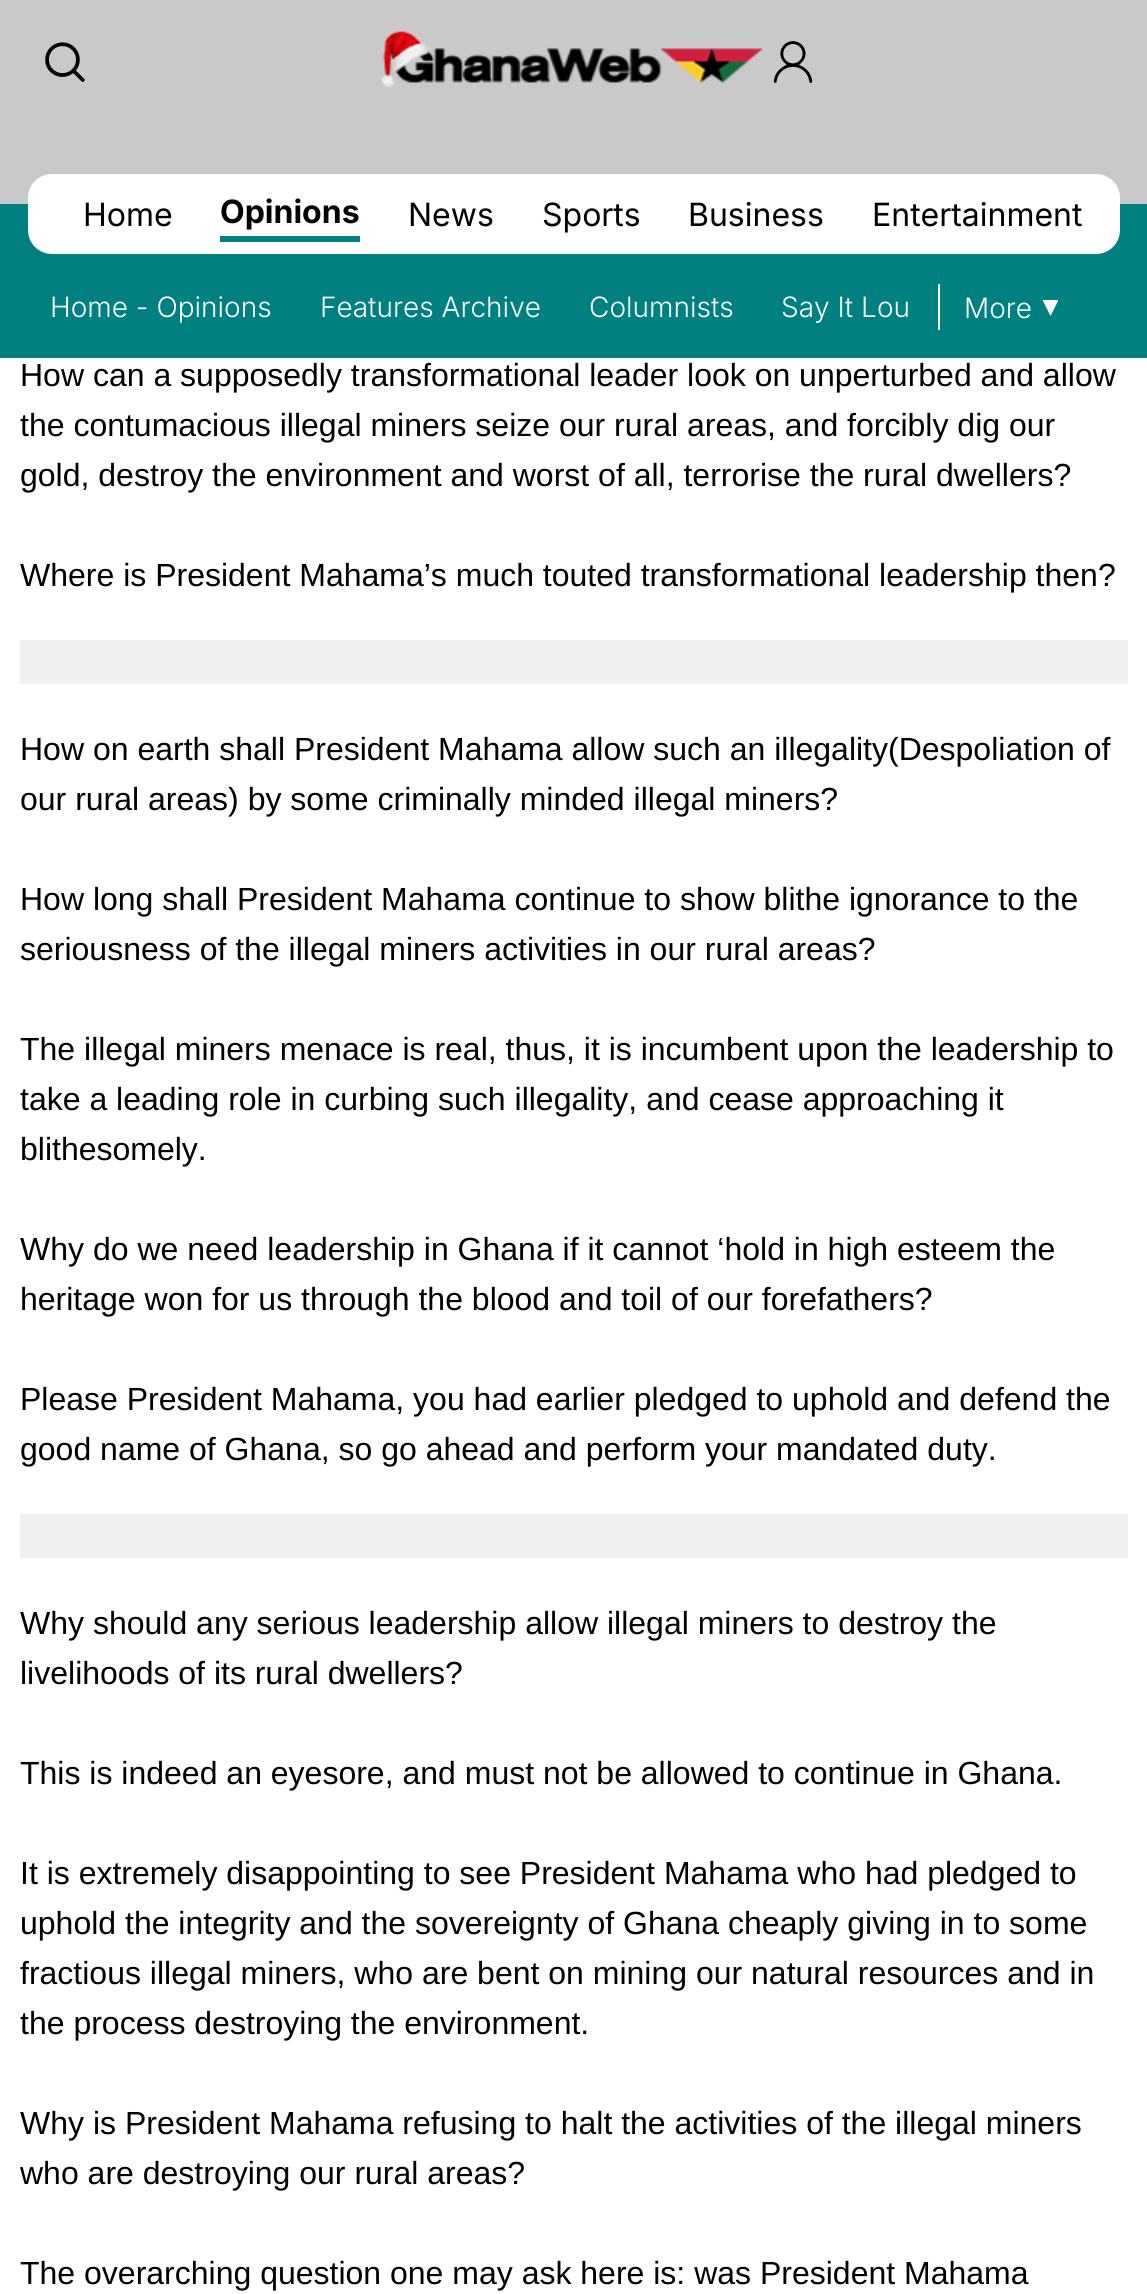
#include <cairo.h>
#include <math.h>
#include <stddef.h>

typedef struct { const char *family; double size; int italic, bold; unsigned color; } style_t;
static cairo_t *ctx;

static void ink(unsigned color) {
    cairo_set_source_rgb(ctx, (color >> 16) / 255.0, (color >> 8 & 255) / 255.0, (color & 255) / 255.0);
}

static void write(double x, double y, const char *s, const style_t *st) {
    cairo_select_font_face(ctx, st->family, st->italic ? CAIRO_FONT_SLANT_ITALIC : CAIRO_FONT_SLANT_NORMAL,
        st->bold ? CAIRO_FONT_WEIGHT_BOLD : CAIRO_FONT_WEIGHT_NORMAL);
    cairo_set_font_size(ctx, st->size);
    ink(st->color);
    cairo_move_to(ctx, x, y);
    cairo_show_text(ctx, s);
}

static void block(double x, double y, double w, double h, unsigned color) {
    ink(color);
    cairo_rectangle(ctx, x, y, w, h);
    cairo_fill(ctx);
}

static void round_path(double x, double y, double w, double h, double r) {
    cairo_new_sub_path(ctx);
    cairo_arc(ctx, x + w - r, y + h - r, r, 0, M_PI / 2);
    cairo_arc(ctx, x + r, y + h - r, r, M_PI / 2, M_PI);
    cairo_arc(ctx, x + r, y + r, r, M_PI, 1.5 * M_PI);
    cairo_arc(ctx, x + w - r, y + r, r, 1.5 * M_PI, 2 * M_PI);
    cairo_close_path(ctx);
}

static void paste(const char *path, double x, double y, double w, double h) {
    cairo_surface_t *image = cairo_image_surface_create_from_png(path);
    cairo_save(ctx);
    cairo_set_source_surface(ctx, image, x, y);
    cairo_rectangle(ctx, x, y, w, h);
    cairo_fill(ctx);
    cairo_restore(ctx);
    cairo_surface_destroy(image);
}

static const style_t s1 = {"Inter", 32, 0, 0, 0x000000};
static const style_t s2 = {"Inter", 32, 0, 1, 0x000000};
static const style_t s3 = {"Inter Light", 28, 0, 0, 0xffffff};
static const style_t s4 = {"Liberation Sans", 32, 0, 0, 0x000000};

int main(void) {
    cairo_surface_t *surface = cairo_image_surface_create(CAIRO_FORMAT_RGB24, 1147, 2294);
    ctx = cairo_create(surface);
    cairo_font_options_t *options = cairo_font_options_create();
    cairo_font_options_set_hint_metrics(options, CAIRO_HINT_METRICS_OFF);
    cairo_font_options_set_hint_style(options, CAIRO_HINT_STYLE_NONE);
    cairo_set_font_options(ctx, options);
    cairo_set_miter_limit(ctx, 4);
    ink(0xffffff);
    cairo_paint(ctx);
    block(0, 0, 1147, 204, 0xc9c9c9);
    paste("pic1.png", 45, 42, 40, 40);
    paste("pic2.png", 381, 31, 383, 57);
    paste("pic3.png", 773, 41, 40, 42);
    block(0, 204, 1147, 154, 0x008080);
    ink(0xffffff);
    round_path(28, 174, 1092, 80, 24);
    cairo_fill(ctx);
    write(83, 226, "Home", &s1);
    block(220, 236, 140, 6, 0x008080);
    write(220, 223, "Opinions", &s2);
    write(408, 226, "News", &s1);
    write(542, 226, "Sports", &s1);
    write(688, 226, "Business", &s1);
    write(872, 226, "Entertainment", &s1);
    write(50, 317, "Home - Opinions", &s3);
    write(320, 317, "Features Archive", &s3);
    write(589, 317, "Columnists", &s3);
    write(781, 317, "Say It Lou", &s3);
    block(938, 284, 2, 46, 0xffffff);
    write(964, 318, "More", &s3);
    cairo_new_path(ctx);
    cairo_move_to(ctx, 1042.5, 300);
    cairo_line_to(ctx, 1058, 300);
    cairo_line_to(ctx, 1058, 301);
    cairo_line_to(ctx, 1050.5, 316);
    cairo_close_path(ctx);
    cairo_fill(ctx);
    write(20, 386, "How can a supposedly transformational leader look on unperturbed and allow", &s4);
    write(20, 436, "the contumacious illegal miners seize our rural areas, and forcibly dig our", &s4);
    write(20, 486, "gold, destroy the environment and worst of all, terrorise the rural dwellers?", &s4);
    write(20, 586, "Where is President Mahama’s much touted transformational leadership then?", &s4);
    block(20, 640, 1108, 44, 0xf0f0f0);
    write(20, 760, "How on earth shall President Mahama allow such an illegality(Despoliation of", &s4);
    write(20, 810, "our rural areas) by some criminally minded illegal miners?", &s4);
    write(20, 910, "How long shall President Mahama continue to show blithe ignorance to the", &s4);
    write(20, 960, "seriousness of the illegal miners activities in our rural areas?", &s4);
    write(20, 1060, "The illegal miners menace is real, thus, it is incumbent upon the leadership to", &s4);
    write(20, 1110, "take a leading role in curbing such illegality, and cease approaching it", &s4);
    write(20, 1160, "blithesomely.", &s4);
    write(20, 1260, "Why do we need leadership in Ghana if it cannot ‘hold in high esteem the", &s4);
    write(20, 1310, "heritage won for us through the blood and toil of our forefathers?", &s4);
    write(20, 1410, "Please President Mahama, you had earlier pledged to uphold and defend the", &s4);
    write(20, 1460, "good name of Ghana, so go ahead and perform your mandated duty.", &s4);
    block(20, 1514, 1108, 44, 0xf0f0f0);
    write(20, 1634, "Why should any serious leadership allow illegal miners to destroy the", &s4);
    write(20, 1684, "livelihoods of its rural dwellers?", &s4);
    write(20, 1784, "This is indeed an eyesore, and must not be allowed to continue in Ghana.", &s4);
    write(20, 1884, "It is extremely disappointing to see President Mahama who had pledged to", &s4);
    write(20, 1934, "uphold the integrity and the sovereignty of Ghana cheaply giving in to some", &s4);
    write(20, 1984, "fractious illegal miners, who are bent on mining our natural resources and in", &s4);
    write(20, 2034, "the process destroying the environment.", &s4);
    write(20, 2134, "Why is President Mahama refusing to halt the activities of the illegal miners", &s4);
    write(20, 2184, "who are destroying our rural areas?", &s4);
    write(20, 2284, "The overarching question one may ask here is: was President Mahama", &s4);
    cairo_surface_write_to_png(surface, "screenshot.png");
    cairo_font_options_destroy(options);
    cairo_destroy(ctx);
    cairo_surface_destroy(surface);
    return 0;
}
